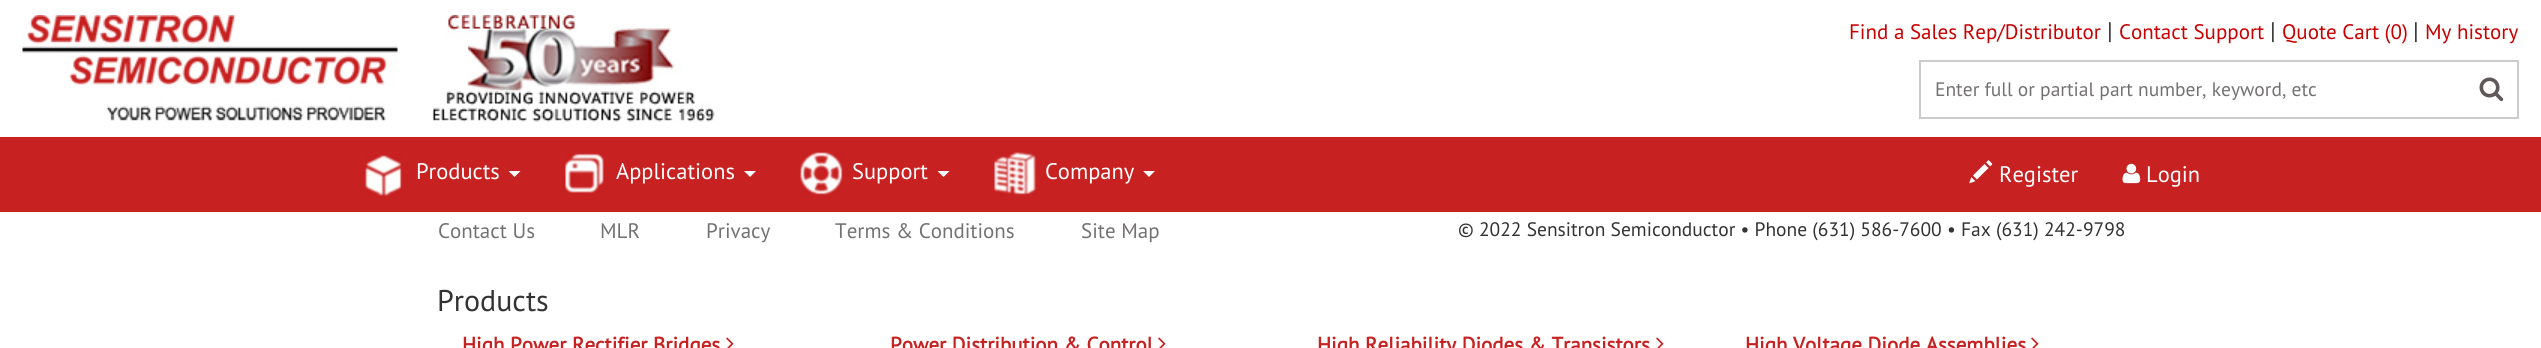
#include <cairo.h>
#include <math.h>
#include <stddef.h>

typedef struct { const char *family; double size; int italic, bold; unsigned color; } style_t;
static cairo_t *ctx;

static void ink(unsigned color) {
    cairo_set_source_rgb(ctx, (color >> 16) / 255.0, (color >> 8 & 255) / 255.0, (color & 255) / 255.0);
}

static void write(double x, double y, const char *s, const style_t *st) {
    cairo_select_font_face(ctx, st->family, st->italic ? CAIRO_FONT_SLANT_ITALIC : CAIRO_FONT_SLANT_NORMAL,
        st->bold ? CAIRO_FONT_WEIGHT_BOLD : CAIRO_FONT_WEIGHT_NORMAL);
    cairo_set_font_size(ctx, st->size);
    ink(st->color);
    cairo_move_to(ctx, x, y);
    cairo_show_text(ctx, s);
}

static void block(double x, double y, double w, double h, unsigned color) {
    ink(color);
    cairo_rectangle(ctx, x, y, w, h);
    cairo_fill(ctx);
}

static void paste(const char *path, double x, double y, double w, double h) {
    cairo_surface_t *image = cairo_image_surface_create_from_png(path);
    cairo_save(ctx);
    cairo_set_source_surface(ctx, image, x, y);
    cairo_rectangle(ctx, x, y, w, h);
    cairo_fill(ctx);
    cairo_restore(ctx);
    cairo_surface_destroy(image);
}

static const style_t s1 = {"PT Sans", 21, 0, 0, 0xc80000};
static const style_t s2 = {"PT Sans", 24, 0, 0, 0x333333};
static const style_t s3 = {"PT Sans", 19.5, 0, 0, 0x747172};
static const style_t s4 = {"PT Sans", 22.5, 0, 0, 0xffffff};
static const style_t s5 = {"PT Sans", 21, 0, 0, 0x747172};
static const style_t s6 = {"PT Sans", 19.5, 0, 0, 0x333333};
static const style_t s7 = {"PT Sans", 30, 0, 0, 0x333333};
static const style_t s8 = {"PT Sans", 21, 0, 1, 0xc72121};

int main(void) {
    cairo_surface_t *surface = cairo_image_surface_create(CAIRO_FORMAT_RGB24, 2541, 348);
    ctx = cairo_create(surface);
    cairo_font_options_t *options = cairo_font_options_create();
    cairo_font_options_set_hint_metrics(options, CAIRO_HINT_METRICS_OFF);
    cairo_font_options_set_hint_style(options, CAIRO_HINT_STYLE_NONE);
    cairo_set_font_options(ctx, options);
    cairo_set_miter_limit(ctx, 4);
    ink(0xffffff);
    cairo_paint(ctx);
    paste("pic1.png", 22, 15, 693, 107);
    write(1849, 39, "Find a Sales Rep/Distributor", &s1);
    write(2107, 39, "|", &s2);
    write(2119, 39, "Contact Support", &s1);
    write(2270, 39, "|", &s2);
    write(2282, 39, "Quote Cart (0)", &s1);
    write(2413, 39, "|", &s2);
    write(2425, 39, "My history", &s1);
    cairo_rectangle(ctx, 1920, 61, 598, 57);
    ink(0xcccccc);
    cairo_stroke(ctx);
    write(1935, 96, "Enter full or partial part number, keyword, etc", &s3);
    paste("pic2.png", 2479, 77, 25, 25);
    block(0, 137, 2541, 75, 0xc72121);
    paste("pic3.png", 365, 155, 37, 41);
    write(416, 179, "Products", &s4);
    cairo_new_path(ctx);
    cairo_move_to(ctx, 508.5, 171);
    cairo_line_to(ctx, 520.5, 171);
    cairo_line_to(ctx, 514.5, 177);
    cairo_close_path(ctx);
    cairo_fill(ctx);
    paste("pic4.png", 565, 153, 39, 40);
    write(616, 179, "Applications", &s4);
    cairo_new_path(ctx);
    cairo_move_to(ctx, 744, 171);
    cairo_line_to(ctx, 756, 171);
    cairo_line_to(ctx, 750, 177);
    cairo_close_path(ctx);
    cairo_fill(ctx);
    paste("pic5.png", 800, 152, 43, 43);
    write(852, 179, "Support", &s4);
    cairo_new_path(ctx);
    cairo_move_to(ctx, 937.5, 171);
    cairo_line_to(ctx, 949.5, 171);
    cairo_line_to(ctx, 943.5, 177);
    cairo_close_path(ctx);
    cairo_fill(ctx);
    paste("pic6.png", 994, 152, 42, 43);
    write(1045, 179, "Company", &s4);
    cairo_new_path(ctx);
    cairo_move_to(ctx, 1143, 171);
    cairo_line_to(ctx, 1155, 171);
    cairo_line_to(ctx, 1149, 177);
    cairo_close_path(ctx);
    cairo_fill(ctx);
    paste("pic7.png", 1969, 160, 24, 24);
    write(1999, 182, "Register", &s4);
    paste("pic8.png", 2122, 163, 19, 21);
    write(2146, 182, "Login", &s4);
    write(438, 238, "Contact Us", &s5);
    write(600, 238, "MLR", &s5);
    write(706, 238, "Privacy", &s5);
    write(835, 238, "Terms & Conditions", &s5);
    write(1081, 238, "Site Map", &s5);
    write(1458, 236, "© 2022 Sensitron Semiconductor • Phone (631) 586-7600 • Fax (631) 242-9798", &s6);
    write(437, 311, "Products", &s7);
    write(462, 352, "High Power Rectifier Bridges", &s8);
    paste("pic9.png", 726, 337, 8, 11);
    write(890, 352, "Power Distribution & Control", &s8);
    paste("pic9.png", 1158, 337, 8, 11);
    write(1317, 352, "High Reliability Diodes & Transistors", &s8);
    paste("pic9.png", 1656, 337, 8, 11);
    write(1745, 352, "High Voltage Diode Assemblies", &s8);
    paste("pic9.png", 2031, 337, 8, 11);
    cairo_surface_write_to_png(surface, "screenshot.png");
    cairo_font_options_destroy(options);
    cairo_destroy(ctx);
    cairo_surface_destroy(surface);
    return 0;
}
